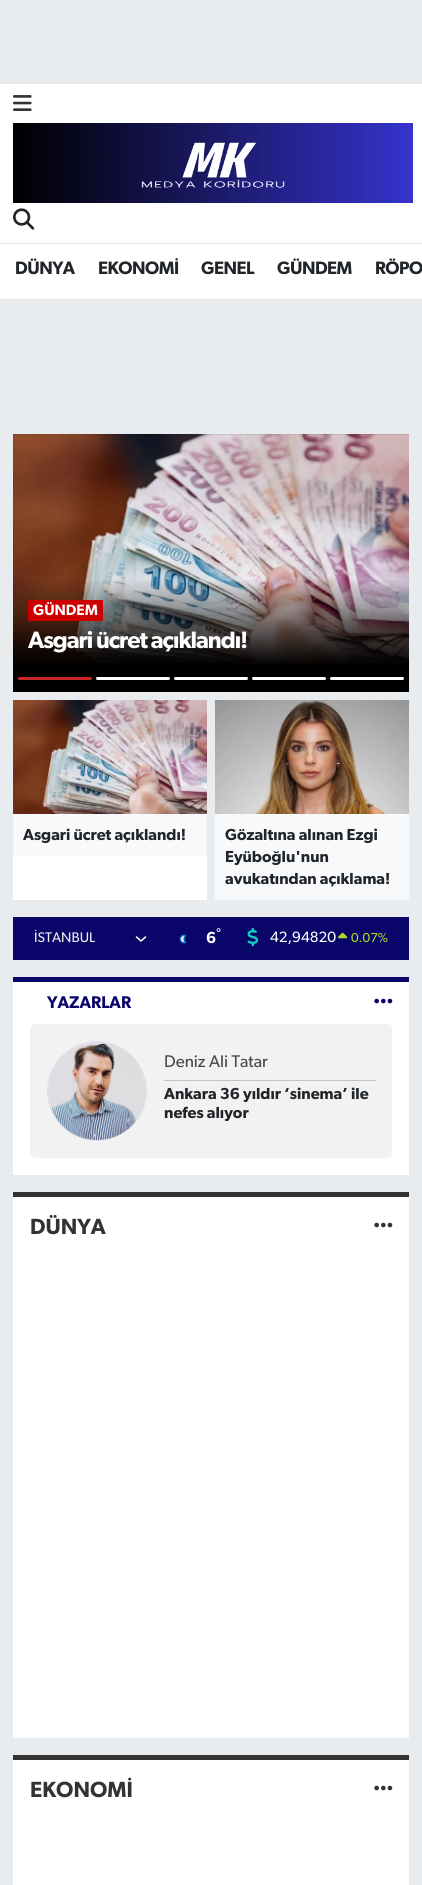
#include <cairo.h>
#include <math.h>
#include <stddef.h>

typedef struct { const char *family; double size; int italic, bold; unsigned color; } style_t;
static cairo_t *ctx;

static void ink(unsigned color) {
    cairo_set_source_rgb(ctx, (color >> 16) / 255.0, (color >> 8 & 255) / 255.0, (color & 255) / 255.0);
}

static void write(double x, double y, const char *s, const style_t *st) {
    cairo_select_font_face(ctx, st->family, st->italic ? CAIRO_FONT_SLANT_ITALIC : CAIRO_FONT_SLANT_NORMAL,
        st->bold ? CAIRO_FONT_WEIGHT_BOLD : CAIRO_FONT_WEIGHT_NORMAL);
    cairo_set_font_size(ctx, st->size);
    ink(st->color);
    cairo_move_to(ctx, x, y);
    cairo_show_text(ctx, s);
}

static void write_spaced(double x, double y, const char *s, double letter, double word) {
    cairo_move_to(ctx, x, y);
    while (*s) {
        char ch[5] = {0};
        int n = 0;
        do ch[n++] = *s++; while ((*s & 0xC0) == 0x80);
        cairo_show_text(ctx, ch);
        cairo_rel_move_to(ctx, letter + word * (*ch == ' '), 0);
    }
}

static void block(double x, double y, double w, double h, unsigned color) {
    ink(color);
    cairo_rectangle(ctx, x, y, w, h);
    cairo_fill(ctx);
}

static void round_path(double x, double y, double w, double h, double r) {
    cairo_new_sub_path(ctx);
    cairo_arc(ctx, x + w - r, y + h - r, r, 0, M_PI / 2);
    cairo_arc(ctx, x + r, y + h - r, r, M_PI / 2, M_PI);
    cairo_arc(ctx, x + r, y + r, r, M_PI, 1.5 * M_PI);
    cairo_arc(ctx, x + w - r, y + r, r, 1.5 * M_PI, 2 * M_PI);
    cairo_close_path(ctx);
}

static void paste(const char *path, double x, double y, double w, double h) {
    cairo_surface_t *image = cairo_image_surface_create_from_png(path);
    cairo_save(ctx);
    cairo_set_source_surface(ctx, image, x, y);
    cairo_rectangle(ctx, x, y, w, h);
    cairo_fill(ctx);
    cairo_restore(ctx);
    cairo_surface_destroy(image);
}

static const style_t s1 = {"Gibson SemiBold", 15, 0, 0, 0xffffff};
static const style_t s2 = {"Gibson SemiBold", 16, 0, 0, 0x212529};
static const style_t s3 = {"Gibson", 14, 0, 0, 0xefefef};
static const style_t s4 = {"Gibson SemiBold", 12, 0, 0, 0xffffff};
static const style_t s5 = {"Gibson SemiBold", 16, 0, 0, 0xffffff};
static const style_t s6 = {"Gibson", 15, 0, 0, 0xffffff};
static const style_t s7 = {"Gibson", 13, 0, 0, 0xabdc28};
static const style_t s8 = {"Gibson SemiBold", 17, 0, 0, 0x0a0569};
static const style_t s9 = {"Gibson", 17, 0, 0, 0x494949};
static const style_t s10 = {"Gibson SemiBold", 22, 0, 0, 0x333333};

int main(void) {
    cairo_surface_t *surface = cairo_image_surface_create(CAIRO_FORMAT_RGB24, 422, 1885);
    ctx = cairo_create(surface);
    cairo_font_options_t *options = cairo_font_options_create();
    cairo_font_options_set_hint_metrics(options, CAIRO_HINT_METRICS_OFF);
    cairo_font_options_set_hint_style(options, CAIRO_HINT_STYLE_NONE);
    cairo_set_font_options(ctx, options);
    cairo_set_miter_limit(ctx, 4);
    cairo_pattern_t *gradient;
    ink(0xe9ecef);
    cairo_paint(ctx);
    block(0, 84, 422, 159, 0xffffff);
    block(0, 243, 422, 1, 0xdee2e6);
    paste("pic1.png", 13, 95, 19, 16);
    paste("pic2.png", 13, 123, 400, 80);
    paste("pic3.png", 13, 208, 22, 22);
    block(0, 244, 422, 55, 0xffffff);
    block(0, 299, 422, 1, 0xe6e6e6);
    cairo_select_font_face(ctx, "Gibson SemiBold", CAIRO_FONT_SLANT_NORMAL, CAIRO_FONT_WEIGHT_NORMAL);
    cairo_set_font_size(ctx, 18);
    ink(0x212529);
    write_spaced(15, 274, "DÜNYA", -0.5, 0);
    write_spaced(98, 274, "EKONOMİ", -0.5, 0);
    write_spaced(201, 274, "GENEL", -0.5, 0);
    write_spaced(277, 274, "GÜNDEM", -0.5, 0);
    write_spaced(375, 274, "RÖPO", -0.5, 0);
    block(13, 434, 396, 258, 0x000000);
    paste("pic4.png", 13, 434, 396, 231);
    gradient = cairo_pattern_create_linear(212, 578, 212, 666);
    cairo_pattern_add_color_stop_rgba(gradient, 0, 0, 0, 0, 0);
    cairo_pattern_add_color_stop_rgba(gradient, 1, 0, 0, 0, 1);
    cairo_set_source(ctx, gradient);
    cairo_pattern_destroy(gradient);
    cairo_rectangle(ctx, 13, 580, 396, 85);
    cairo_fill(ctx);
    block(28, 600, 75, 21, 0xcc0000);
    write(33, 615, "GÜNDEM", &s1);
    cairo_set_font_size(ctx, 23.75);
    write_spaced(28, 648, "Asgari ücret açıklandı!", -1, 0);
    ink(0xca2527);
    round_path(18, 677, 74, 3, 1.5);
    cairo_fill(ctx);
    ink(0xffffff);
    round_path(96, 677, 74, 3, 1.5);
    cairo_fill(ctx);
    round_path(174, 677, 74, 3, 1.5);
    cairo_fill(ctx);
    round_path(252, 677, 74, 3, 1.5);
    cairo_fill(ctx);
    round_path(330, 677, 74, 3, 1.5);
    cairo_fill(ctx);
    block(13, 856, 194, 44, 0xffffff);
    paste("pic5.png", 13, 700, 194, 114);
    block(13, 814, 194, 42, 0xf8f9fa);
    write(23, 840, "Asgari ücret açıklandı!", &s2);
    paste("pic6.png", 215, 700, 194, 114);
    block(215, 814, 194, 86, 0xf8f9fa);
    write(225, 840, "Gözaltına alınan Ezgi", &s2);
    write(225, 862, "Eyüboğlu'nun", &s2);
    write(225, 884, "avukatından açıklama!", &s2);
    block(13, 917, 396, 43, 0x0a0569);
    cairo_new_path(ctx);
    cairo_move_to(ctx, 136.5, 937);
    cairo_line_to(ctx, 141, 941);
    cairo_line_to(ctx, 145.5, 937);
    ink(0xffffff);
    cairo_set_line_width(ctx, 1.5);
    cairo_set_line_cap(ctx, CAIRO_LINE_CAP_ROUND);
    cairo_set_line_join(ctx, CAIRO_LINE_JOIN_ROUND);
    cairo_stroke(ctx);
    write(34, 942, "İSTANBUL", &s3);
    paste("pic7.png", 179, 934, 8, 10);
    write(216, 937, "°", &s4);
    write(206, 943, "6", &s5);
    paste("pic8.png", 247, 927, 11, 20);
    write(270, 942, "42,94820", &s6);
    paste("pic9.png", 338, 932, 10, 7);
    write(351, 942, "0.07%", &s7);
    block(13, 982, 396, 193, 0xffffff);
    block(13, 977, 396, 5, 0x0a0569);
    write(47, 1008, "YAZARLAR", &s8);
    paste("pic10.png", 374, 998, 19, 6);
    cairo_save(ctx);
    cairo_rectangle(ctx, 30, 1024, 362, 134);
    cairo_clip(ctx);
    ink(0xf2f2f2);
    round_path(30, 1024, 363, 134, 6);
    cairo_fill(ctx);
    cairo_restore(ctx);
    cairo_arc(ctx, 97, 1091, 49.5, 0, 2 * M_PI);
    ink(0xdee2e6);
    cairo_set_line_width(ctx, 1);
    cairo_set_line_cap(ctx, CAIRO_LINE_CAP_BUTT);
    cairo_set_line_join(ctx, CAIRO_LINE_JOIN_MITER);
    cairo_stroke(ctx);
    paste("pic11.png", 48, 1042, 98, 98);
    block(164, 1080, 212, 1, 0xc2c2c2);
    write(164, 1067, "Deniz Ali Tatar", &s9);
    write(164, 1099, "Ankara 36 yıldır ‘sinema’ ile", &s2);
    write(164, 1118, "nefes alıyor", &s2);
    block(13, 1197, 396, 541, 0xffffff);
    block(13, 1192, 396, 5, 0x333333);
    write(30, 1234, "DÜNYA", &s10);
    paste("pic12.png", 374, 1222, 19, 6);
    block(13, 1760, 396, 125, 0xffffff);
    block(13, 1755, 396, 5, 0x333333);
    write(30, 1797, "EKONOMİ", &s10);
    paste("pic12.png", 374, 1785, 19, 6);
    cairo_surface_write_to_png(surface, "screenshot.png");
    cairo_font_options_destroy(options);
    cairo_destroy(ctx);
    cairo_surface_destroy(surface);
    return 0;
}
